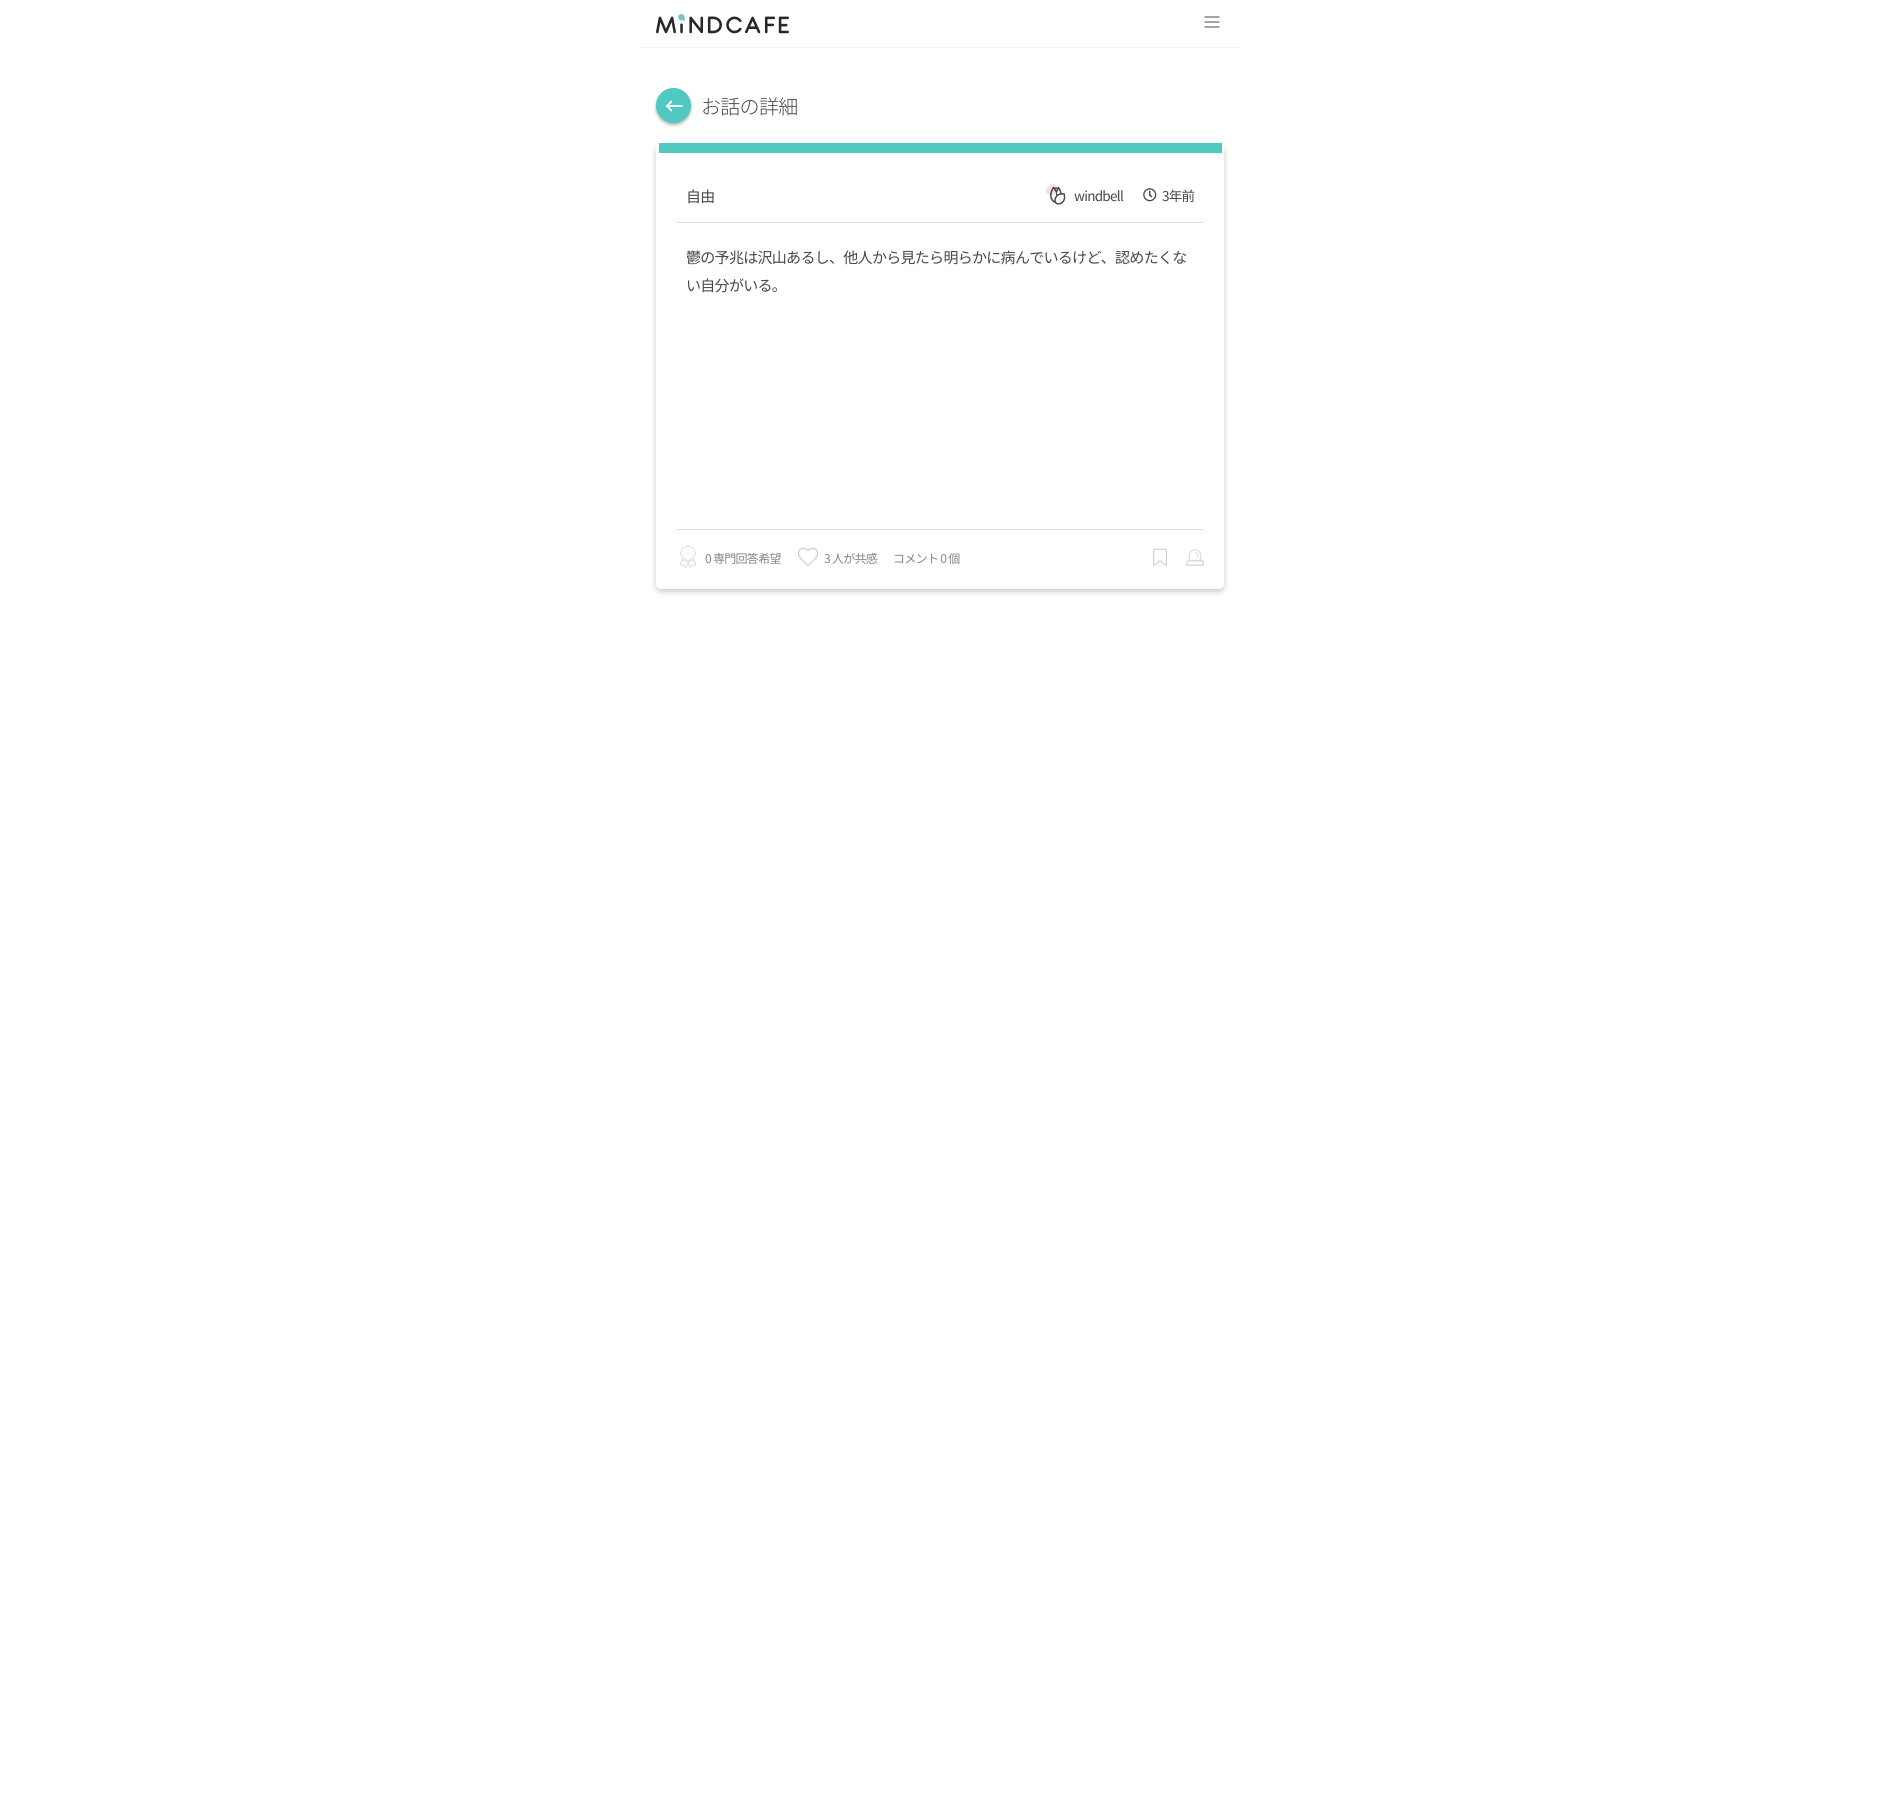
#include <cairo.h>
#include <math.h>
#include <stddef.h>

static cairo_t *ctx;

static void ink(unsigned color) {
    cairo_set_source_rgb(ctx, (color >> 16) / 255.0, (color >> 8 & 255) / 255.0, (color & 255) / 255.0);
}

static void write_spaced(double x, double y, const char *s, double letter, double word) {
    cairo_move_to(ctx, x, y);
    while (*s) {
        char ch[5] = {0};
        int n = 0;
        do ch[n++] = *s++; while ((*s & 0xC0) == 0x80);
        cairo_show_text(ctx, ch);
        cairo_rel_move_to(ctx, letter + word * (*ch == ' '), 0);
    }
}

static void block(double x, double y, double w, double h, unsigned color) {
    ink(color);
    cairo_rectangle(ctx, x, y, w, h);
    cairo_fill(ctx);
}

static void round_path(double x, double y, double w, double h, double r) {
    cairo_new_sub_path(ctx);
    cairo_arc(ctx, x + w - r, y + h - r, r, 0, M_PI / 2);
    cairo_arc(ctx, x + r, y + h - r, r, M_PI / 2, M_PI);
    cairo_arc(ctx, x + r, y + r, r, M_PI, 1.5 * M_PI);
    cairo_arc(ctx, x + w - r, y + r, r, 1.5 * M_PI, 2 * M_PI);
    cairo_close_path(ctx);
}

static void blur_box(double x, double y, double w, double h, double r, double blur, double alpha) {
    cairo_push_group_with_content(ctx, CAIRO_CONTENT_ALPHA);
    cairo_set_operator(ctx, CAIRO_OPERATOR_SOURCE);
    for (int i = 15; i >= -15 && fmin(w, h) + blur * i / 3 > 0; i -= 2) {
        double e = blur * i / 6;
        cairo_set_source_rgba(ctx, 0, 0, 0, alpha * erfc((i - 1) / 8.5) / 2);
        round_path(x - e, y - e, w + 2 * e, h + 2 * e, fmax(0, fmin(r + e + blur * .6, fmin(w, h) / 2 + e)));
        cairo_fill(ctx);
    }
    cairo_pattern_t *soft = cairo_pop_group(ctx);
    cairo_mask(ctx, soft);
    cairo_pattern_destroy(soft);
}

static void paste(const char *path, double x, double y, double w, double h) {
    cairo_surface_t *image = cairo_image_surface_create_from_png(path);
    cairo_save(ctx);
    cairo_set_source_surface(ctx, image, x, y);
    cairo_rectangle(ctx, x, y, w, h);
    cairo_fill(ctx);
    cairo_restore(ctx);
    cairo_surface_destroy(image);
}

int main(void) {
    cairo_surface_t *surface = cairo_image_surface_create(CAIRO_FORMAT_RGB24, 1880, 1812);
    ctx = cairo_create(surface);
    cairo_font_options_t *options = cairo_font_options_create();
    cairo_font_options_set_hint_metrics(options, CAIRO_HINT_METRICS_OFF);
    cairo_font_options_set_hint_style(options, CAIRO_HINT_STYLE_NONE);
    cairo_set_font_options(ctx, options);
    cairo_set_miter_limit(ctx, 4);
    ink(0xffffff);
    cairo_paint(ctx);
    block(640, 47, 600, 1, 0xf0f0f0);
    paste("pic1.png", 656, 14, 133, 20);
    paste("pic2.png", 1204, 16, 16, 12);
    ink(0x000000);
    blur_box(656, 90, 35, 35, 17.5, 1.5, 0.3);
    ink(0x50c9c3);
    cairo_arc(ctx, 673.5, 105.5, 17.5, 0, 2 * M_PI);
    cairo_fill(ctx);
    paste("pic3.png", 665, 100, 18, 12);
    cairo_select_font_face(ctx, "Noto Sans JP Light", CAIRO_FONT_SLANT_NORMAL, CAIRO_FONT_WEIGHT_NORMAL);
    cairo_set_font_size(ctx, 20);
    ink(0x484848);
    write_spaced(701, 114, "お話の詳細", -0.7, 0);
    ink(0x000000);
    blur_box(656, 146, 568, 446, 5, 3, 0.2);
    ink(0xffffff);
    round_path(656, 143, 568, 446, 5);
    cairo_fill(ctx);
    block(659, 143, 563, 10, 0x50c9c3);
    block(676, 222, 528, 1, 0xdddddd);
    cairo_select_font_face(ctx, "Noto Sans JP", CAIRO_FONT_SLANT_NORMAL, CAIRO_FONT_WEIGHT_NORMAL);
    cairo_set_font_size(ctx, 15);
    ink(0x484848);
    write_spaced(686, 202, "自由", -0.7, 0);
    paste("pic4.png", 1045, 183, 21, 22);
    cairo_set_font_size(ctx, 13.5);
    write_spaced(1074, 201, "windbell", -0.7, 0);
    paste("pic5.png", 1143, 188, 14, 14);
    write_spaced(1162, 201, "3年前", -0.7, 0);
    block(676, 529, 528, 1, 0xdddddd);
    cairo_set_font_size(ctx, 15);
    ink(0x484848);
    write_spaced(686, 263, "鬱の予兆は沢山あるし、他人から見たら明らかに病んでいるけど、認めたくな", -0.7, 0);
    write_spaced(686, 291, "い自分がいる。", -0.7, 0);
    paste("pic6.png", 679, 545, 18, 23);
    cairo_set_font_size(ctx, 12);
    ink(0x868686);
    write_spaced(705, 563, "0 専門回答希望", -0.7, 0);
    paste("pic7.png", 798, 547, 20, 20);
    write_spaced(824, 563, "3 人が共感", -0.7, 0);
    write_spaced(893, 563, "コメント 0 個", -0.7, 0);
    paste("pic8.png", 1153, 548, 14, 19);
    paste("pic9.png", 1186, 549, 18, 17);
    cairo_surface_write_to_png(surface, "screenshot.png");
    cairo_font_options_destroy(options);
    cairo_destroy(ctx);
    cairo_surface_destroy(surface);
    return 0;
}
